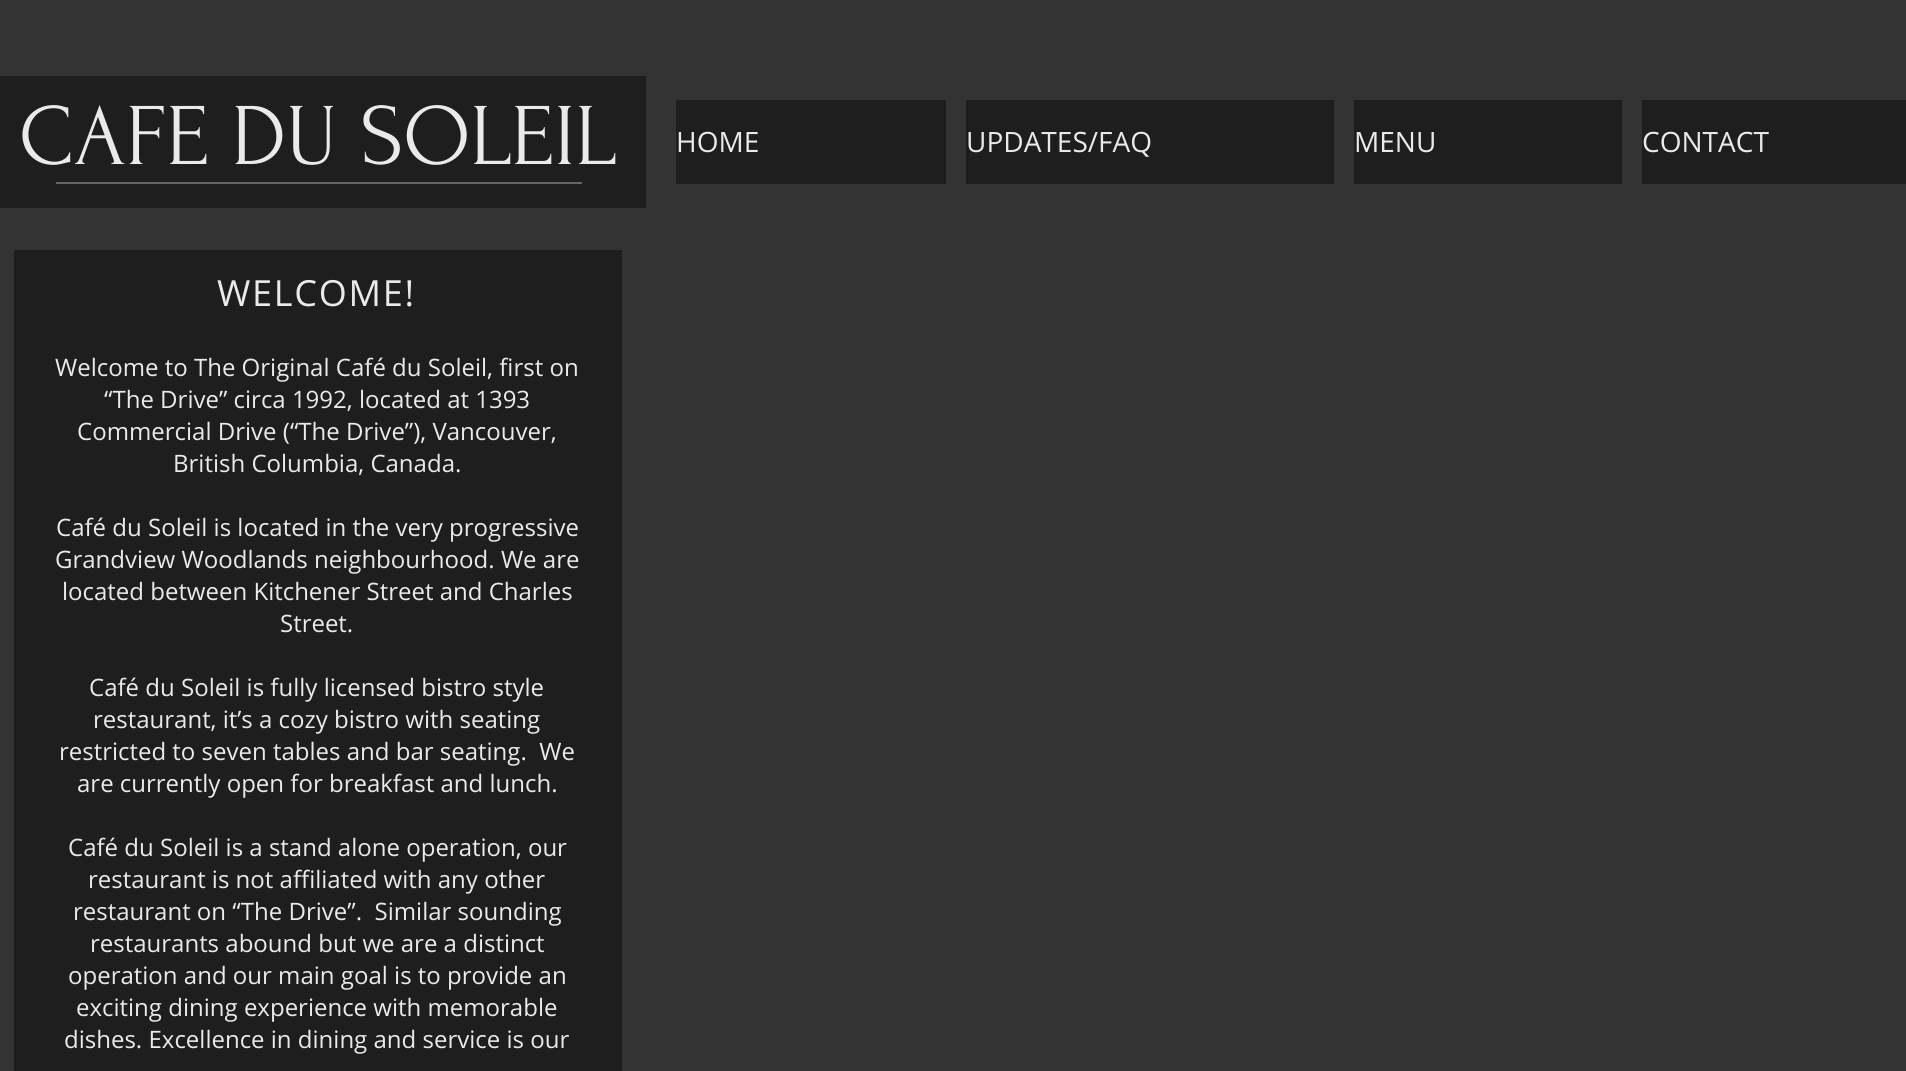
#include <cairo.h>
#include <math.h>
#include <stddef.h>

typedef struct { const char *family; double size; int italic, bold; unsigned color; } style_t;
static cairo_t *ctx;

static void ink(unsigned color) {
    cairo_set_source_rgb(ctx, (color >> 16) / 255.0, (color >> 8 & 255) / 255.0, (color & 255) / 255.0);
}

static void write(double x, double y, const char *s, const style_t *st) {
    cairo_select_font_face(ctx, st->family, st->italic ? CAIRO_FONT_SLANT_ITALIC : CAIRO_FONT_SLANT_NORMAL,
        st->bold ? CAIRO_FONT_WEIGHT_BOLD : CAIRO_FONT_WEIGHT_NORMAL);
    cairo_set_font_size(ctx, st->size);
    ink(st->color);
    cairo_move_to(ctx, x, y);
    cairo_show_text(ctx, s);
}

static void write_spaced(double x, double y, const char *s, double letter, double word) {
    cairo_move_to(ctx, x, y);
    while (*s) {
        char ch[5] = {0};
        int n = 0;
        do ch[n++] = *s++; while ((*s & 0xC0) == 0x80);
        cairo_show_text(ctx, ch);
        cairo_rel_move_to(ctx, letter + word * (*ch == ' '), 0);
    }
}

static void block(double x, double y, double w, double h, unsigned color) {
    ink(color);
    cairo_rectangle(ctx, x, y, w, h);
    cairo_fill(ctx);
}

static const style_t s1 = {"Forum", 88, 0, 0, 0xeaeaea};
static const style_t s2 = {"Open Sans", 28, 0, 0, 0xeaeaea};
static const style_t s3 = {"Open Sans", 24, 0, 0, 0xeaeaea};

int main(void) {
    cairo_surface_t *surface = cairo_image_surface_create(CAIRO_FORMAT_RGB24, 1906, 1071);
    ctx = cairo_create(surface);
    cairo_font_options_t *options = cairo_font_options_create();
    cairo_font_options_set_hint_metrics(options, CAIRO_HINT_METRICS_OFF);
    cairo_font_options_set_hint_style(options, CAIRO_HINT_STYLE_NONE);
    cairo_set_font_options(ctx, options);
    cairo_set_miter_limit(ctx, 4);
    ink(0x333333);
    cairo_paint(ctx);
    block(0, 76, 646, 132, 0x1e1e1e);
    write(19, 164, "CAFE DU SOLEIL", &s1);
    block(56, 182, 526, 2, 0x656565);
    block(676, 100, 270, 84, 0x1e1e1e);
    write(676, 152, "HOME", &s2);
    block(966, 100, 368, 84, 0x1e1e1e);
    write(966, 152, "UPDATES/FAQ", &s2);
    block(1354, 100, 268, 84, 0x1e1e1e);
    write(1354, 152, "MENU", &s2);
    block(1642, 100, 264, 84, 0x1e1e1e);
    write(1642, 152, "CONTACT", &s2);
    block(14, 250, 608, 821, 0x1e1e1e);
    cairo_set_font_size(ctx, 36);
    ink(0xeaeaea);
    write_spaced(217, 306, "WELCOME!", 1.75, 0);
    write(55, 376, "Welcome to The Original Café du Soleil, first on", &s3);
    write(104, 408, "“The Drive” circa 1992, located at 1393", &s3);
    write(77, 440, "Commercial Drive (“The Drive”), Vancouver,", &s3);
    write(173, 472, "British Columbia, Canada.", &s3);
    write(56, 536, "Café du Soleil is located in the very progressive", &s3);
    write(55, 568, "Grandview Woodlands neighbourhood. We are", &s3);
    write(62, 600, "located between Kitchener Street and Charles", &s3);
    write(280, 632, "Street.", &s3);
    write(89, 696, "Café du Soleil is fully licensed bistro style", &s3);
    write(93, 728, "restaurant, it’s a cozy bistro with seating", &s3);
    write(59, 760, "restricted to seven tables and bar seating.  We", &s3);
    write(77, 792, "are currently open for breakfast and lunch.", &s3);
    write(68, 856, "Café du Soleil is a stand alone operation, our", &s3);
    write(88, 888, "restaurant is not affiliated with any other", &s3);
    write(73, 920, "restaurant on “The Drive”.  Similar sounding", &s3);
    write(90, 952, "restaurants abound but we are a distinct", &s3);
    write(68, 984, "operation and our main goal is to provide an", &s3);
    write(76, 1016, "exciting dining experience with memorable", &s3);
    write(64, 1048, "dishes. Excellence in dining and service is our", &s3);
    cairo_surface_write_to_png(surface, "screenshot.png");
    cairo_font_options_destroy(options);
    cairo_destroy(ctx);
    cairo_surface_destroy(surface);
    return 0;
}
